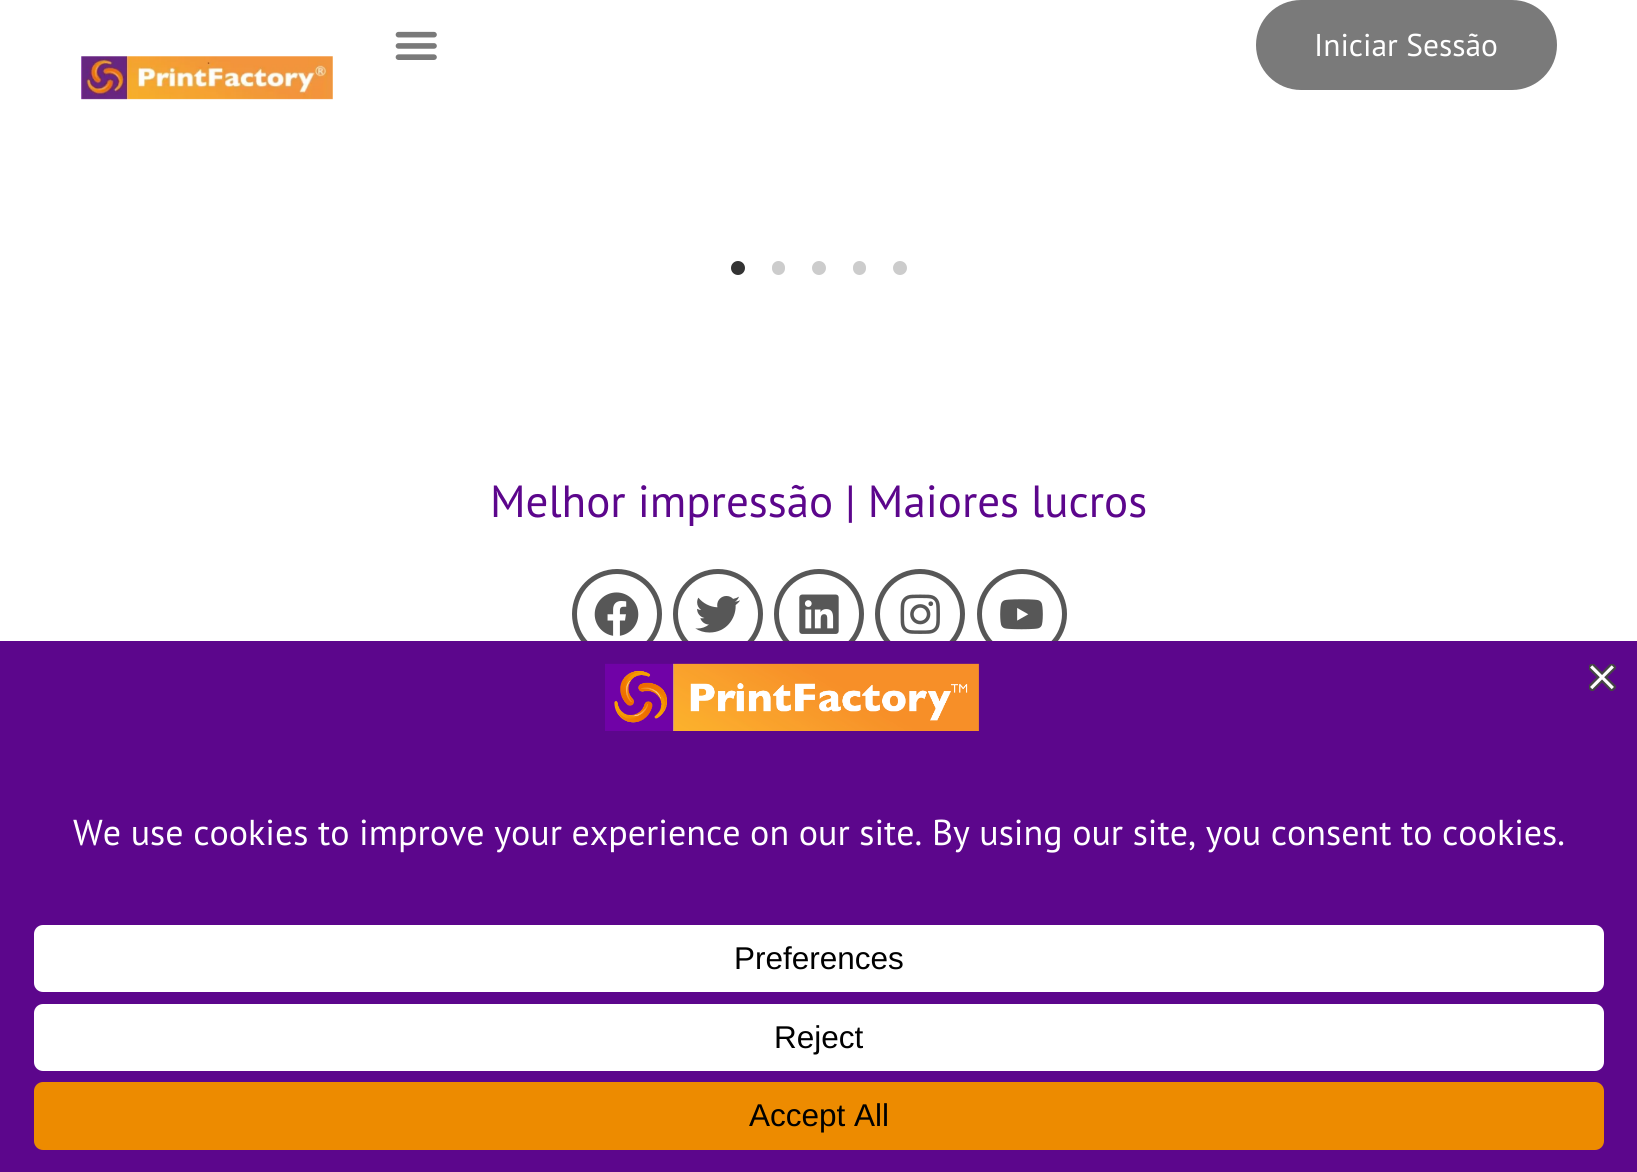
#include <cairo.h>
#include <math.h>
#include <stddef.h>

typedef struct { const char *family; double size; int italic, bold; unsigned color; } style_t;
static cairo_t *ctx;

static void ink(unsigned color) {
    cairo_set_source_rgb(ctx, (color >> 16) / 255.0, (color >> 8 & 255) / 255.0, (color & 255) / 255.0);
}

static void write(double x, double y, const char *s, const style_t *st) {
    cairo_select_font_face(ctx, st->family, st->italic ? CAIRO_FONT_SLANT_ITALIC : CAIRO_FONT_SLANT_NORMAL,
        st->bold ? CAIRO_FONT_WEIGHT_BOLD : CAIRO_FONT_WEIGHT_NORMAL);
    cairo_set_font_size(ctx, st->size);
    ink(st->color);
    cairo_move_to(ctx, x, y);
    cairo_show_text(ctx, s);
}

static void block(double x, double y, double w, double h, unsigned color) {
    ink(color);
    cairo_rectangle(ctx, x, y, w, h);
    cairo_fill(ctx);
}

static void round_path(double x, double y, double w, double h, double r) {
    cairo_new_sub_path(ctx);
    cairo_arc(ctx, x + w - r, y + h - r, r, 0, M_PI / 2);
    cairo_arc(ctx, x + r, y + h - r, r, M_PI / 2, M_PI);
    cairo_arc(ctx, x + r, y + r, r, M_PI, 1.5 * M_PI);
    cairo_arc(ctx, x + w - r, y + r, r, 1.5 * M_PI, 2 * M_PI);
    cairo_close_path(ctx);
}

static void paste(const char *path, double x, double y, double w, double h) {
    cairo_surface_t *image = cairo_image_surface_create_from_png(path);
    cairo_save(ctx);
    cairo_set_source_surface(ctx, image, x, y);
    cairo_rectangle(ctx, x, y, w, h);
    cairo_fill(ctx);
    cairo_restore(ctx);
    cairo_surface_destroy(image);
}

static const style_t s1 = {"PT Sans", 31.5, 0, 0, 0xffffff};
static const style_t s2 = {"PT Sans", 45, 0, 0, 0x5c068c};
static const style_t s3 = {"PT Sans", 36, 0, 0, 0xffffff};
static const style_t s4 = {"Liberation Sans", 31.5, 0, 0, 0x000000};

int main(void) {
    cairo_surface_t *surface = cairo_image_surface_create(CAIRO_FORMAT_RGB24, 1637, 1172);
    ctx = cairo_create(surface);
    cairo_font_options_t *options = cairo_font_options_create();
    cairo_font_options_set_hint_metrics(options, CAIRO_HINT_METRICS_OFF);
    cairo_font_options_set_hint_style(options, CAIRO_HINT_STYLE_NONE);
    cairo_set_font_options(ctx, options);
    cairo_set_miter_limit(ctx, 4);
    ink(0xffffff);
    cairo_paint(ctx);
    paste("pic1.png", 395, 31, 42, 29);
    ink(0x7a7a7a);
    round_path(1257, 1, 299, 88, 44);
    cairo_fill_preserve(ctx);
    cairo_stroke(ctx);
    write(1314, 56, "Iniciar Sessão", &s1);
    paste("pic2.png", 81, 56, 252, 44);
    ink(0x333333);
    cairo_arc(ctx, 738, 268, 7, 0, 2 * M_PI);
    cairo_fill(ctx);
    ink(0xcccccc);
    round_path(772, 261, 13, 14, 6.5);
    cairo_fill(ctx);
    cairo_arc(ctx, 819, 268, 7, 0, 2 * M_PI);
    cairo_fill(ctx);
    round_path(853, 261, 13, 14, 6.5);
    cairo_fill(ctx);
    cairo_arc(ctx, 900, 268, 7, 0, 2 * M_PI);
    cairo_fill(ctx);
    write(490, 517, "Melhor impressão | Maiores lucros", &s2);
    cairo_new_path(ctx);
    cairo_arc(ctx, 617, 614, 42.5, 0, 2 * M_PI);
    ink(0x575757);
    cairo_set_line_width(ctx, 5);
    cairo_stroke(ctx);
    paste("pic3.png", 594, 592, 45, 44);
    cairo_arc(ctx, 718, 614, 42.5, 0, 2 * M_PI);
    cairo_stroke(ctx);
    paste("pic4.png", 695, 596, 45, 37);
    cairo_arc(ctx, 819, 614, 42.5, 0, 2 * M_PI);
    cairo_stroke(ctx);
    paste("pic5.png", 799, 594, 40, 40);
    cairo_arc(ctx, 920, 614, 42.5, 0, 2 * M_PI);
    cairo_stroke(ctx);
    paste("pic6.png", 900, 594, 40, 40);
    cairo_arc(ctx, 1022, 614, 42.5, 0, 2 * M_PI);
    cairo_stroke(ctx);
    paste("pic7.png", 1000, 599, 43, 31);
    block(0, 641, 1637, 531, 0x5c068c);
    paste("pic8.png", 605, 663, 374, 68);
    paste("pic9.png", 1589, 664, 27, 27);
    write(73, 845, "We use cookies to improve your experience on our site. By using our site, you consent to cookies.", &s3);
    round_path(34, 925, 1570, 67, 9);
    cairo_fill(ctx);
    write(734, 969, "Preferences", &s4);
    ink(0xffffff);
    round_path(34, 1004, 1570, 67, 9);
    cairo_fill(ctx);
    write(774, 1048, "Reject", &s4);
    ink(0xed8b00);
    round_path(34, 1082, 1570, 68, 9);
    cairo_fill(ctx);
    write(749, 1126, "Accept All", &s4);
    cairo_surface_write_to_png(surface, "screenshot.png");
    cairo_font_options_destroy(options);
    cairo_destroy(ctx);
    cairo_surface_destroy(surface);
    return 0;
}
